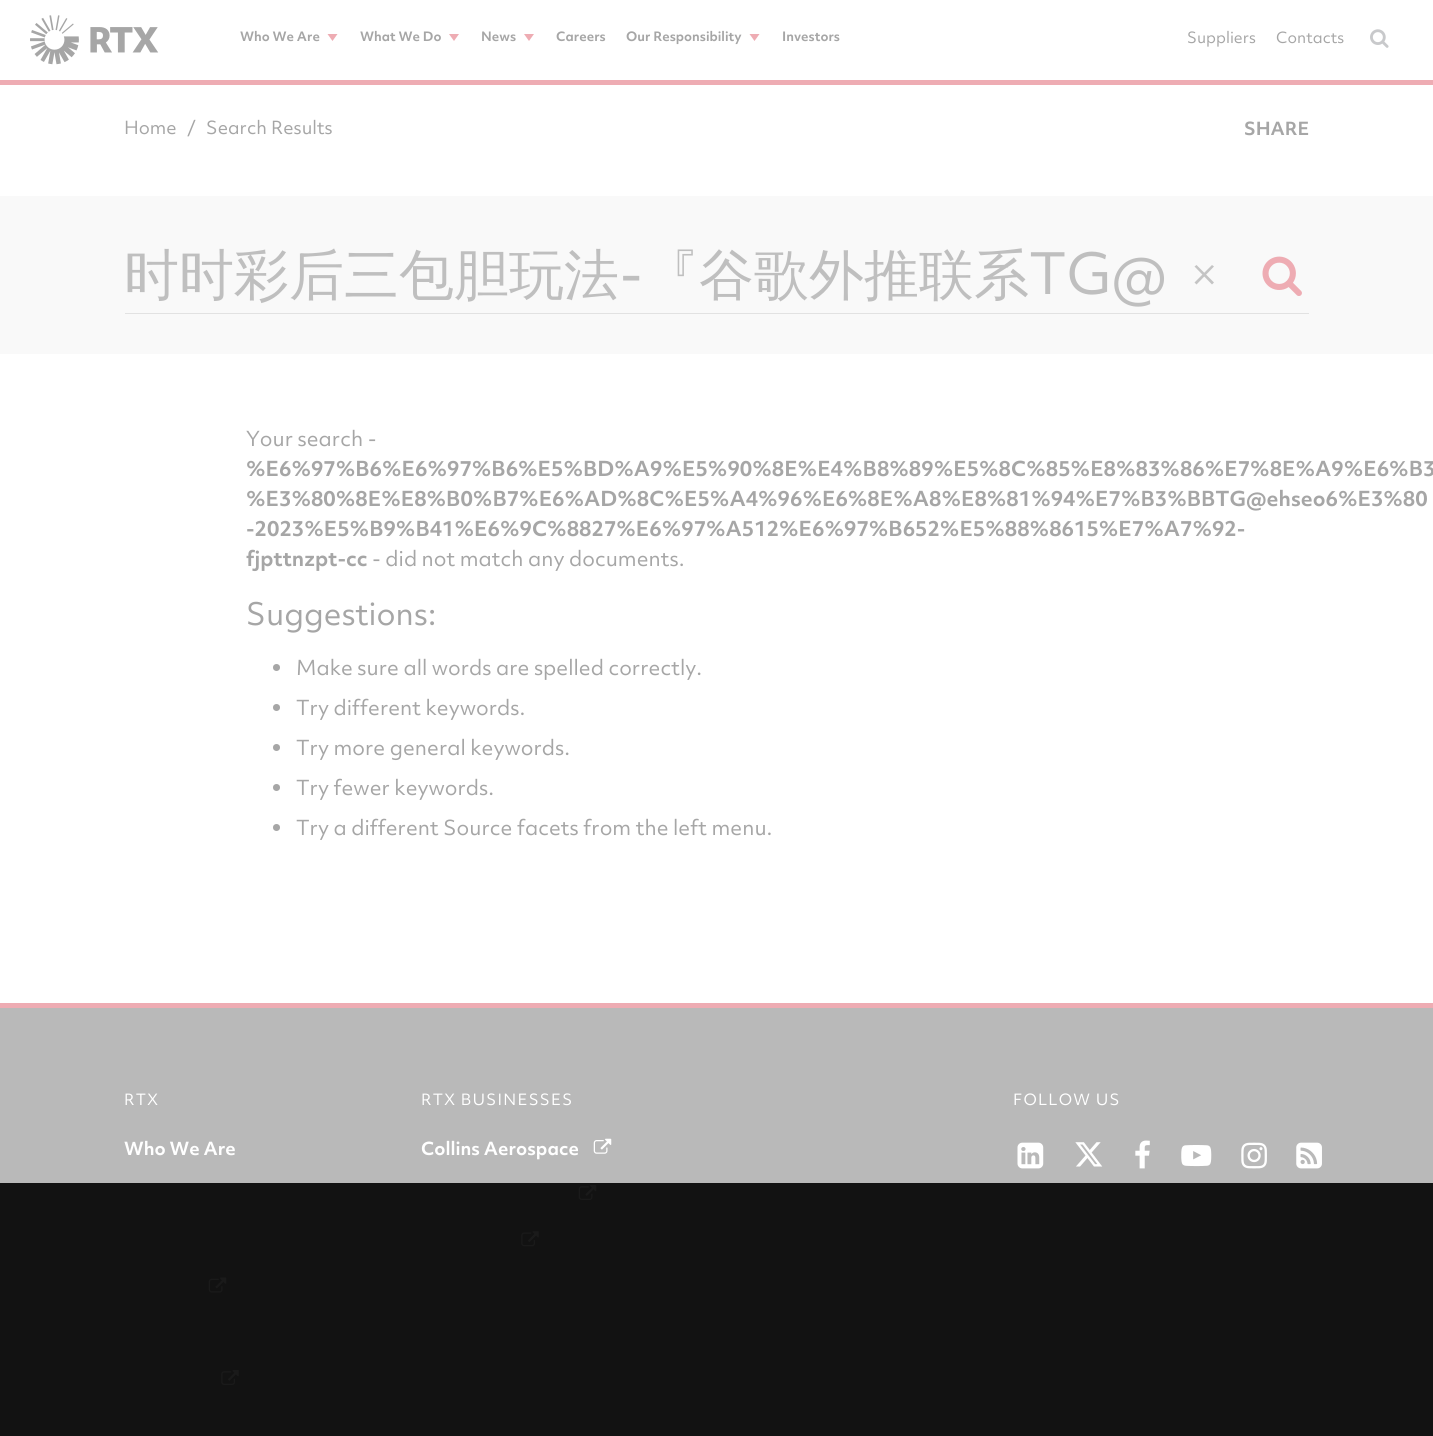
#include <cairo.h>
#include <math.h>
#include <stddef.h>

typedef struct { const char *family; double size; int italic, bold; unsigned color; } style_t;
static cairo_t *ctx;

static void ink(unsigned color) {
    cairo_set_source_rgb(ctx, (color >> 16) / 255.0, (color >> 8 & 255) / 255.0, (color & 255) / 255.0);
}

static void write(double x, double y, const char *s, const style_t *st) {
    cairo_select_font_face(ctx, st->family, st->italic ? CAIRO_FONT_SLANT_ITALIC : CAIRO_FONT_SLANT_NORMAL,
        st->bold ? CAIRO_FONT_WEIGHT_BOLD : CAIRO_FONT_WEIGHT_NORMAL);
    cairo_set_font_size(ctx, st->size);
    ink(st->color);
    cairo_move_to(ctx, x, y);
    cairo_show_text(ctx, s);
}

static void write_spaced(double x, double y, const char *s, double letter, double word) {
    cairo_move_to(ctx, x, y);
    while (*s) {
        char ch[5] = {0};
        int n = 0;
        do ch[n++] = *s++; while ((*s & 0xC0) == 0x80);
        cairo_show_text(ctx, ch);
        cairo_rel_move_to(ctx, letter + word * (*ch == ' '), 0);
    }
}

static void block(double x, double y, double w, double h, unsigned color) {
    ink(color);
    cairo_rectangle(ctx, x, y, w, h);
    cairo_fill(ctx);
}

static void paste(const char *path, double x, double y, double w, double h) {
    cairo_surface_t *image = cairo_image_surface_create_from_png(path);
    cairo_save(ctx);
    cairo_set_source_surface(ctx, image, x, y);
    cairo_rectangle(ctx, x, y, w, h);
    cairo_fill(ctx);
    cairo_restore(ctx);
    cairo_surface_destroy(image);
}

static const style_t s1 = {"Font", 12.5, 0, 1, 0xa6a6a6};
static const style_t s2 = {"Font", 15, 0, 0, 0xa6a6a6};
static const style_t s3 = {"Font", 17.5, 0, 0, 0xa6a6a6};
static const style_t s4 = {"Font", 17.5, 0, 1, 0xa6a6a6};
static const style_t s5 = {"WenQuanYi Zen Hei Medium", 55, 0, 0, 0xbfbfbf};
static const style_t s6 = {"Font", 55, 0, 0, 0xbfbfbf};
static const style_t s7 = {"Font", 20, 0, 0, 0xa6a6a6};
static const style_t s8 = {"Font", 20, 0, 1, 0xa6a6a6};
static const style_t s9 = {"Font", 30, 0, 0, 0xa6a6a6};
static const style_t s10 = {"Font", 17.5, 0, 1, 0xffffff};

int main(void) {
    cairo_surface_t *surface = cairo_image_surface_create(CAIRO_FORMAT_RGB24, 1433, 1436);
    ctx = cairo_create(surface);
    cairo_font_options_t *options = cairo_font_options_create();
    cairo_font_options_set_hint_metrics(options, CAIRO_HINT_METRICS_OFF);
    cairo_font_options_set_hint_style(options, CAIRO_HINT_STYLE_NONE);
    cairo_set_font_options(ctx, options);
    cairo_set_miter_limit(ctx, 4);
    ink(0xffffff);
    cairo_paint(ctx);
    paste("pic1.png", 30, 15, 129, 50);
    write(240, 41, "Who We Are", &s1);
    ink(0xeeacb3);
    cairo_new_path(ctx);
    cairo_move_to(ctx, 327.5, 34);
    cairo_line_to(ctx, 337.5, 34);
    cairo_line_to(ctx, 332.5, 41);
    cairo_close_path(ctx);
    cairo_fill(ctx);
    write(360, 41, "What We Do", &s1);
    ink(0xeeacb3);
    cairo_new_path(ctx);
    cairo_move_to(ctx, 449, 34);
    cairo_line_to(ctx, 459, 34);
    cairo_line_to(ctx, 454, 41);
    cairo_close_path(ctx);
    cairo_fill(ctx);
    write(481, 41, "News", &s1);
    ink(0xeeacb3);
    cairo_new_path(ctx);
    cairo_move_to(ctx, 524, 34);
    cairo_line_to(ctx, 534, 34);
    cairo_line_to(ctx, 529, 41);
    cairo_close_path(ctx);
    cairo_fill(ctx);
    write(556, 41, "Careers", &s1);
    write(626, 41, "Our Responsibility", &s1);
    ink(0xeeacb3);
    cairo_new_path(ctx);
    cairo_move_to(ctx, 749.5, 34);
    cairo_line_to(ctx, 759.5, 34);
    cairo_line_to(ctx, 754.5, 41);
    cairo_close_path(ctx);
    cairo_fill(ctx);
    write(782, 41, "Investors", &s1);
    write(1187, 43, "Suppliers", &s2);
    write(1276, 43, "Contacts", &s2);
    paste("pic2.png", 1370, 29, 19, 19);
    block(0, 80, 1433, 5, 0xeeacb3);
    write(124, 134, "Home", &s3);
    write(187, 134, "/", &s3);
    write(206, 134, "Search Results", &s3);
    write(1244, 135, "SHARE", &s4);
    block(0, 196, 1433, 158, 0xf9f9f9);
    block(125, 313, 1184, 1, 0xe2e2e2);
    write(124, 294, "时时彩后三包胆玩法", &s5);
    write(619, 294, "-", &s6);
    write(644, 294, "『谷歌外推联系", &s5);
    write(1029, 294, "TG@", &s6);
    ink(0xc4c4c4);
    cairo_new_path(ctx);
    cairo_move_to(ctx, 1196.5, 265);
    cairo_line_to(ctx, 1214, 282.5);
    cairo_line_to(ctx, 1212, 284.5);
    cairo_line_to(ctx, 1194.5, 266.5);
    cairo_close_path(ctx);
    cairo_fill(ctx);
    cairo_new_path(ctx);
    cairo_move_to(ctx, 1194.5, 282.5);
    cairo_line_to(ctx, 1212, 265);
    cairo_line_to(ctx, 1214, 266.5);
    cairo_line_to(ctx, 1196.5, 284.5);
    cairo_close_path(ctx);
    cairo_fill(ctx);
    paste("pic3.png", 1262, 256, 40, 40);
    write(246, 446, "Your search -", &s7);
    write(246, 476, "%E6%97%B6%E6%97%B6%E5%BD%A9%E5%90%8E%E4%B8%89%E5%8C%85%E8%83%86%E7%8E%A9%E6%B3", &s8);
    write(246, 506, "%E3%80%8E%E8%B0%B7%E6%AD%8C%E5%A4%96%E6%8E%A8%E8%81%94%E7%B3%BBTG@ehseo6%E3%80", &s8);
    write(246, 536, "-2023%E5%B9%B41%E6%9C%8827%E6%97%A512%E6%97%B652%E5%88%8615%E7%A7%92-", &s8);
    write(246, 566, "fjpttnzpt-cc", &s8);
    write(372, 566, "- did not match any documents.", &s7);
    write(246, 625, "Suggestions:", &s9);
    cairo_new_path(ctx);
    cairo_arc(ctx, 276.5, 667.5, 3.5, 0, 2 * M_PI);
    cairo_fill(ctx);
    write(296, 675, "Make sure all words are spelled correctly.", &s7);
    cairo_new_path(ctx);
    cairo_arc(ctx, 276.5, 707.5, 3.5, 0, 2 * M_PI);
    cairo_fill(ctx);
    write(296, 715, "Try different keywords.", &s7);
    cairo_new_path(ctx);
    cairo_arc(ctx, 276.5, 747.5, 3.5, 0, 2 * M_PI);
    cairo_fill(ctx);
    write(296, 755, "Try more general keywords.", &s7);
    cairo_new_path(ctx);
    cairo_arc(ctx, 276.5, 787.5, 3.5, 0, 2 * M_PI);
    cairo_fill(ctx);
    write(296, 795, "Try fewer keywords.", &s7);
    cairo_new_path(ctx);
    cairo_arc(ctx, 276.5, 827.5, 3.5, 0, 2 * M_PI);
    cairo_fill(ctx);
    write(296, 835, "Try a different Source facets from the left menu.", &s7);
    block(0, 1008, 1433, 175, 0xb9b9b9);
    block(0, 1183, 1433, 253, 0x121212);
    block(0, 1003, 1433, 5, 0xeeacb3);
    cairo_set_font_size(ctx, 15);
    ink(0xffffff);
    write_spaced(124, 1105, "RTX", 1.25, 0);
    write(124, 1155, "Who We Are", &s10);
    paste("pic4.png", 208, 1277, 19, 16);
    paste("pic5.png", 221, 1370, 18, 15);
    cairo_select_font_face(ctx, "Font", CAIRO_FONT_SLANT_NORMAL, CAIRO_FONT_WEIGHT_NORMAL);
    cairo_set_font_size(ctx, 15);
    write_spaced(421, 1105, "RTX BUSINESSES", 1.25, 0);
    write(421, 1155, "Collins Aerospace", &s10);
    paste("pic6.png", 593, 1138, 19, 16);
    paste("pic7.png", 578, 1185, 19, 15);
    paste("pic8.png", 521, 1231, 18, 16);
    cairo_select_font_face(ctx, "Font", CAIRO_FONT_SLANT_NORMAL, CAIRO_FONT_WEIGHT_NORMAL);
    cairo_set_font_size(ctx, 15);
    write_spaced(1013, 1105, "FOLLOW US", 1.25, 0);
    paste("pic9.png", 1017, 1142, 27, 27);
    paste("pic10.png", 1075, 1142, 28, 25);
    paste("pic11.png", 1135, 1140, 15, 29);
    paste("pic12.png", 1181, 1145, 31, 22);
    paste("pic13.png", 1241, 1142, 26, 27);
    paste("pic14.png", 1296, 1142, 26, 27);
    cairo_surface_write_to_png(surface, "screenshot.png");
    cairo_font_options_destroy(options);
    cairo_destroy(ctx);
    cairo_surface_destroy(surface);
    return 0;
}
